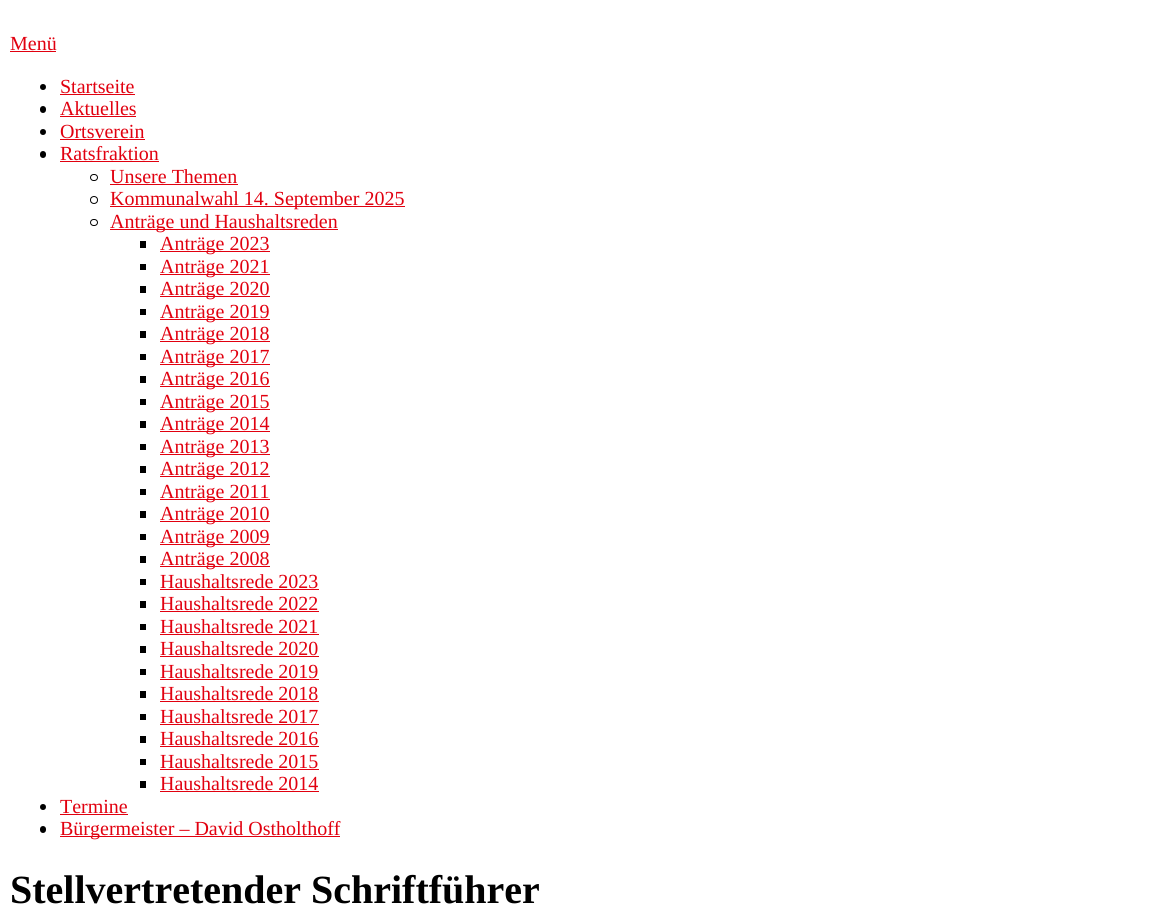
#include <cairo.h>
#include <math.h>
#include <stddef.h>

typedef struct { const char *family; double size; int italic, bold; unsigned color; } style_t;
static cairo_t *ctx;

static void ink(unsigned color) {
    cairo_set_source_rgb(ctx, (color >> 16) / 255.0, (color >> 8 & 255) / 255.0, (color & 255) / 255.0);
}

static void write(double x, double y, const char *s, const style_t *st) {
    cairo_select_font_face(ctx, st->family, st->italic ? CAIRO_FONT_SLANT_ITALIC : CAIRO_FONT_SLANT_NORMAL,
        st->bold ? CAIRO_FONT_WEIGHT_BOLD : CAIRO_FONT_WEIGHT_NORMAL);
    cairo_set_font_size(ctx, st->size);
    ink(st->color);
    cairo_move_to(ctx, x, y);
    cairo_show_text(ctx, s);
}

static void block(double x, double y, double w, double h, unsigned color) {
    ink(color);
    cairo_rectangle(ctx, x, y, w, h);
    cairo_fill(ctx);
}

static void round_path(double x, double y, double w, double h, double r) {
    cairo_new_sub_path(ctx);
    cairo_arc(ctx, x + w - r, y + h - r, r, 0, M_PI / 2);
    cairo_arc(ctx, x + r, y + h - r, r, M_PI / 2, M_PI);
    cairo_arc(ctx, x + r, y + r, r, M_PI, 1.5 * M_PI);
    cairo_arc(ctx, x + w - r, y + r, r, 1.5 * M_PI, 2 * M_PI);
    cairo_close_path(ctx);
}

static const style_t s1 = {"Liberation Serif", 20, 0, 0, 0xe1000f};
static const style_t s2 = {"Liberation Serif", 40, 0, 1, 0x000000};

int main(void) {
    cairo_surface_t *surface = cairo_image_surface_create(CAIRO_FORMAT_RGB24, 1154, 916);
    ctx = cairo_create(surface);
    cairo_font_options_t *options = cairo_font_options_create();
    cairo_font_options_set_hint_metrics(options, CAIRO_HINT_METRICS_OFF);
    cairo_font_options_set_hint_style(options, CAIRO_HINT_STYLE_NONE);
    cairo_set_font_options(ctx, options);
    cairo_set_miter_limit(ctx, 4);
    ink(0xffffff);
    cairo_paint(ctx);
    write(10, 50, "Menü", &s1);
    block(10, 51, 46, 1, 0xe1000f);
    ink(0x000000);
    cairo_new_path(ctx);
    cairo_arc(ctx, 43, 87, 3, 0, 2 * M_PI);
    cairo_fill(ctx);
    write(60, 93, "Startseite", &s1);
    block(60, 94, 75, 1, 0xe1000f);
    ink(0x000000);
    round_path(40, 106, 6, 7, 3);
    cairo_fill(ctx);
    write(60, 115, "Aktuelles", &s1);
    block(60, 116, 76, 1, 0xe1000f);
    ink(0x000000);
    cairo_new_path(ctx);
    cairo_arc(ctx, 43, 132, 3, 0, 2 * M_PI);
    cairo_fill(ctx);
    write(60, 138, "Ortsverein", &s1);
    block(60, 139, 85, 1, 0xe1000f);
    ink(0x000000);
    round_path(40, 151, 6, 7, 3);
    cairo_fill(ctx);
    write(60, 160, "Ratsfraktion", &s1);
    block(60, 161, 99, 1, 0xe1000f);
    round_path(90.5, 174.5, 7, 6, 3);
    ink(0x000000);
    cairo_set_line_width(ctx, 1);
    cairo_stroke(ctx);
    write(110, 183, "Unsere Themen", &s1);
    block(110, 184, 128, 1, 0xe1000f);
    cairo_new_path(ctx);
    cairo_arc(ctx, 94, 200, 3.5, 0, 2 * M_PI);
    ink(0x000000);
    cairo_stroke(ctx);
    block(110, 206, 295, 1, 0xe1000f);
    write(110, 205, "Kommunalwahl 14. September 2025", &s1);
    round_path(90.5, 219.5, 7, 6, 3);
    ink(0x000000);
    cairo_stroke(ctx);
    block(110, 229, 228, 1, 0xe1000f);
    write(110, 228, "Anträge und Haushaltsreden", &s1);
    block(140, 241, 6, 7, 0x000000);
    block(160, 251, 110, 1, 0xe1000f);
    write(160, 250, "Anträge 2023", &s1);
    block(140, 264, 6, 6, 0x000000);
    block(160, 274, 110, 1, 0xe1000f);
    write(160, 273, "Anträge 2021", &s1);
    block(140, 286, 6, 7, 0x000000);
    block(160, 296, 110, 1, 0xe1000f);
    write(160, 295, "Anträge 2020", &s1);
    block(140, 309, 6, 6, 0x000000);
    block(160, 319, 110, 1, 0xe1000f);
    write(160, 318, "Anträge 2019", &s1);
    block(140, 331, 6, 7, 0x000000);
    block(160, 341, 110, 1, 0xe1000f);
    write(160, 340, "Anträge 2018", &s1);
    block(140, 354, 6, 6, 0x000000);
    block(160, 364, 110, 1, 0xe1000f);
    write(160, 363, "Anträge 2017", &s1);
    block(140, 376, 6, 7, 0x000000);
    block(160, 386, 110, 1, 0xe1000f);
    write(160, 385, "Anträge 2016", &s1);
    block(140, 399, 6, 6, 0x000000);
    block(160, 409, 110, 1, 0xe1000f);
    write(160, 408, "Anträge 2015", &s1);
    block(140, 421, 6, 7, 0x000000);
    block(160, 431, 110, 1, 0xe1000f);
    write(160, 430, "Anträge 2014", &s1);
    block(140, 444, 6, 6, 0x000000);
    block(160, 454, 110, 1, 0xe1000f);
    write(160, 453, "Anträge 2013", &s1);
    block(140, 466, 6, 7, 0x000000);
    block(160, 476, 110, 1, 0xe1000f);
    write(160, 475, "Anträge 2012", &s1);
    block(140, 489, 6, 6, 0x000000);
    block(160, 499, 110, 1, 0xe1000f);
    write(160, 498, "Anträge 2011", &s1);
    block(140, 511, 6, 7, 0x000000);
    block(160, 521, 110, 1, 0xe1000f);
    write(160, 520, "Anträge 2010", &s1);
    block(140, 534, 6, 6, 0x000000);
    block(160, 544, 110, 1, 0xe1000f);
    write(160, 543, "Anträge 2009", &s1);
    block(140, 556, 6, 7, 0x000000);
    block(160, 566, 110, 1, 0xe1000f);
    write(160, 565, "Anträge 2008", &s1);
    block(140, 579, 6, 6, 0x000000);
    write(160, 588, "Haushaltsrede 2023", &s1);
    block(160, 589, 159, 1, 0xe1000f);
    block(140, 601, 6, 7, 0x000000);
    write(160, 610, "Haushaltsrede 2022", &s1);
    block(160, 611, 159, 1, 0xe1000f);
    block(140, 624, 6, 6, 0x000000);
    write(160, 633, "Haushaltsrede 2021", &s1);
    block(160, 634, 159, 1, 0xe1000f);
    block(140, 646, 6, 7, 0x000000);
    write(160, 655, "Haushaltsrede 2020", &s1);
    block(160, 656, 159, 1, 0xe1000f);
    block(140, 669, 6, 6, 0x000000);
    write(160, 678, "Haushaltsrede 2019", &s1);
    block(160, 679, 159, 1, 0xe1000f);
    block(140, 691, 6, 7, 0x000000);
    write(160, 700, "Haushaltsrede 2018", &s1);
    block(160, 701, 159, 1, 0xe1000f);
    block(140, 714, 6, 6, 0x000000);
    write(160, 723, "Haushaltsrede 2017", &s1);
    block(160, 724, 159, 1, 0xe1000f);
    block(140, 736, 6, 7, 0x000000);
    write(160, 745, "Haushaltsrede 2016", &s1);
    block(160, 746, 159, 1, 0xe1000f);
    block(140, 759, 6, 6, 0x000000);
    write(160, 768, "Haushaltsrede 2015", &s1);
    block(160, 769, 159, 1, 0xe1000f);
    block(140, 781, 6, 7, 0x000000);
    write(160, 790, "Haushaltsrede 2014", &s1);
    block(160, 791, 159, 1, 0xe1000f);
    ink(0x000000);
    cairo_new_path(ctx);
    cairo_arc(ctx, 43, 807, 3, 0, 2 * M_PI);
    cairo_fill(ctx);
    write(60, 813, "Termine", &s1);
    block(60, 814, 68, 1, 0xe1000f);
    ink(0x000000);
    round_path(40, 826, 6, 7, 3);
    cairo_fill(ctx);
    block(60, 836, 280, 1, 0xe1000f);
    write(60, 835, "Bürgermeister – David Ostholthoff", &s1);
    write(10, 903, "Stellvertretender Schriftführer", &s2);
    cairo_surface_write_to_png(surface, "screenshot.png");
    cairo_font_options_destroy(options);
    cairo_destroy(ctx);
    cairo_surface_destroy(surface);
    return 0;
}
